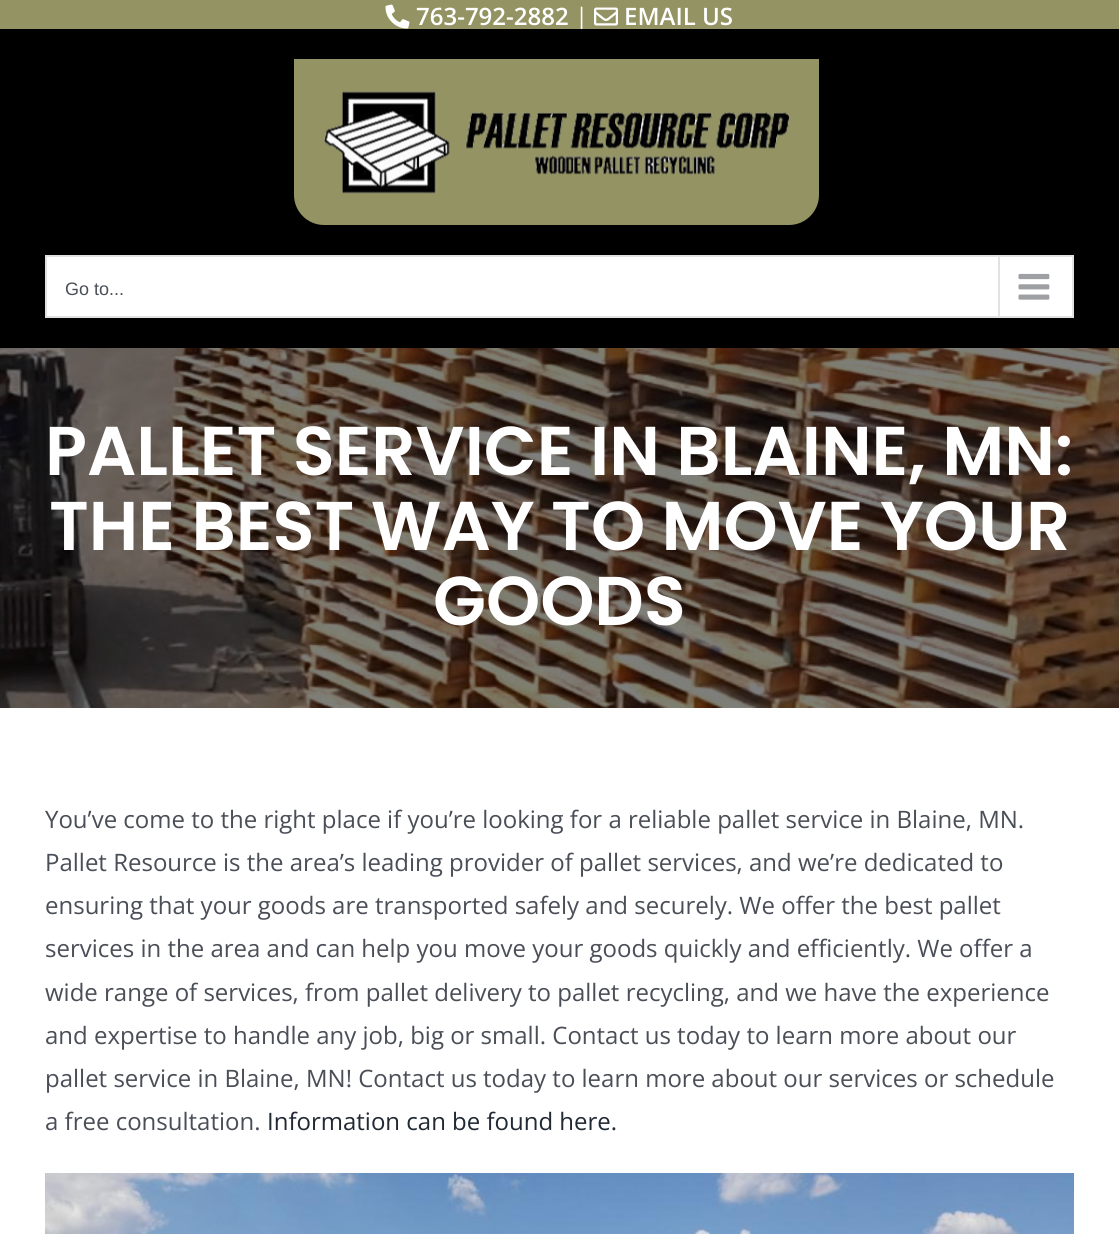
#include <cairo.h>
#include <math.h>
#include <stddef.h>

typedef struct { const char *family; double size; int italic, bold; unsigned color; } style_t;
static cairo_t *ctx;

static void ink(unsigned color) {
    cairo_set_source_rgb(ctx, (color >> 16) / 255.0, (color >> 8 & 255) / 255.0, (color & 255) / 255.0);
}

static void write(double x, double y, const char *s, const style_t *st) {
    cairo_select_font_face(ctx, st->family, st->italic ? CAIRO_FONT_SLANT_ITALIC : CAIRO_FONT_SLANT_NORMAL,
        st->bold ? CAIRO_FONT_WEIGHT_BOLD : CAIRO_FONT_WEIGHT_NORMAL);
    cairo_set_font_size(ctx, st->size);
    ink(st->color);
    cairo_move_to(ctx, x, y);
    cairo_show_text(ctx, s);
}

static void block(double x, double y, double w, double h, unsigned color) {
    ink(color);
    cairo_rectangle(ctx, x, y, w, h);
    cairo_fill(ctx);
}

static void paste(const char *path, double x, double y, double w, double h) {
    cairo_surface_t *image = cairo_image_surface_create_from_png(path);
    cairo_save(ctx);
    cairo_set_source_surface(ctx, image, x, y);
    cairo_rectangle(ctx, x, y, w, h);
    cairo_fill(ctx);
    cairo_restore(ctx);
    cairo_surface_destroy(image);
}

static const style_t s1 = {"Open Sans SemiBold", 24, 0, 0, 0xffffff};
static const style_t s2 = {"Open Sans", 24, 0, 0, 0xffffff};
static const style_t s3 = {"Liberation Sans", 18, 0, 0, 0x4a4e57};
static const style_t s4 = {"Poppins SemiBold", 69, 0, 0, 0xffffff};
static const style_t s5 = {"Open Sans", 24, 0, 0, 0x4a4e57};
static const style_t s6 = {"Open Sans", 24, 0, 0, 0x212934};

int main(void) {
    cairo_surface_t *surface = cairo_image_surface_create(CAIRO_FORMAT_RGB24, 1119, 1234);
    ctx = cairo_create(surface);
    cairo_font_options_t *options = cairo_font_options_create();
    cairo_font_options_set_hint_metrics(options, CAIRO_HINT_METRICS_OFF);
    cairo_font_options_set_hint_style(options, CAIRO_HINT_STYLE_NONE);
    cairo_set_font_options(ctx, options);
    cairo_set_miter_limit(ctx, 4);
    ink(0xffffff);
    cairo_paint(ctx);
    block(0, 0, 1119, 29, 0x949363);
    paste("pic1.png", 385, 4, 25, 25);
    write(416, 25, "763-792-2882", &s1);
    cairo_save(ctx);
    cairo_rectangle(ctx, 0, 0, 1119, 29);
    cairo_clip(ctx);
    write(575, 25, "|", &s2);
    cairo_restore(ctx);
    paste("pic2.png", 594, 7, 24, 19);
    write(624, 25, "EMAIL US", &s1);
    block(0, 29, 1119, 319, 0x000000);
    ink(0x949363);
    cairo_new_path(ctx);
    cairo_move_to(ctx, 294, 59);
    cairo_line_to(ctx, 819, 59);
    cairo_line_to(ctx, 819, 195);
    cairo_curve_to(ctx, 819, 211.5, 805.5, 225, 789, 225);
    cairo_line_to(ctx, 324, 225);
    cairo_curve_to(ctx, 307.5, 225, 294, 211.5, 294, 195);
    cairo_close_path(ctx);
    cairo_fill(ctx);
    paste("pic3.png", 324, 91, 465, 103);
    ink(0xffffff);
    cairo_rectangle(ctx, 46, 256, 1027, 61);
    cairo_fill_preserve(ctx);
    ink(0xe2e2e2);
    cairo_stroke(ctx);
    write(65, 295, "Go to...", &s3);
    block(998, 257, 2, 60, 0xe2e2e2);
    paste("pic4.png", 1018, 273, 32, 27);
    paste("pic5.png", 0, 348, 1119, 360);
    write(45, 475, "PALLET SERVICE IN BLAINE, MN:", &s4);
    write(49, 550, "THE BEST WAY TO MOVE YOUR", &s4);
    write(433, 625, "GOODS", &s4);
    write(45, 828, "You’ve come to the right place if you’re looking for a reliable pallet service in Blaine, MN.", &s5);
    write(45, 871, "Pallet Resource is the area’s leading provider of pallet services, and we’re dedicated to", &s5);
    write(45, 914, "ensuring that your goods are transported safely and securely. We offer the best pallet", &s5);
    write(45, 957, "services in the area and can help you move your goods quickly and efficiently. We offer a", &s5);
    write(45, 1001, "wide range of services, from pallet delivery to pallet recycling, and we have the experience", &s5);
    write(45, 1044, "and expertise to handle any job, big or small. Contact us today to learn more about our", &s5);
    write(45, 1087, "pallet service in Blaine, MN! Contact us today to learn more about our services or schedule", &s5);
    write(45, 1130, "a free consultation.", &s5);
    write(267, 1130, "Information can be found here.", &s6);
    paste("pic6.png", 45, 1173, 1029, 61);
    cairo_surface_write_to_png(surface, "screenshot.png");
    cairo_font_options_destroy(options);
    cairo_destroy(ctx);
    cairo_surface_destroy(surface);
    return 0;
}
